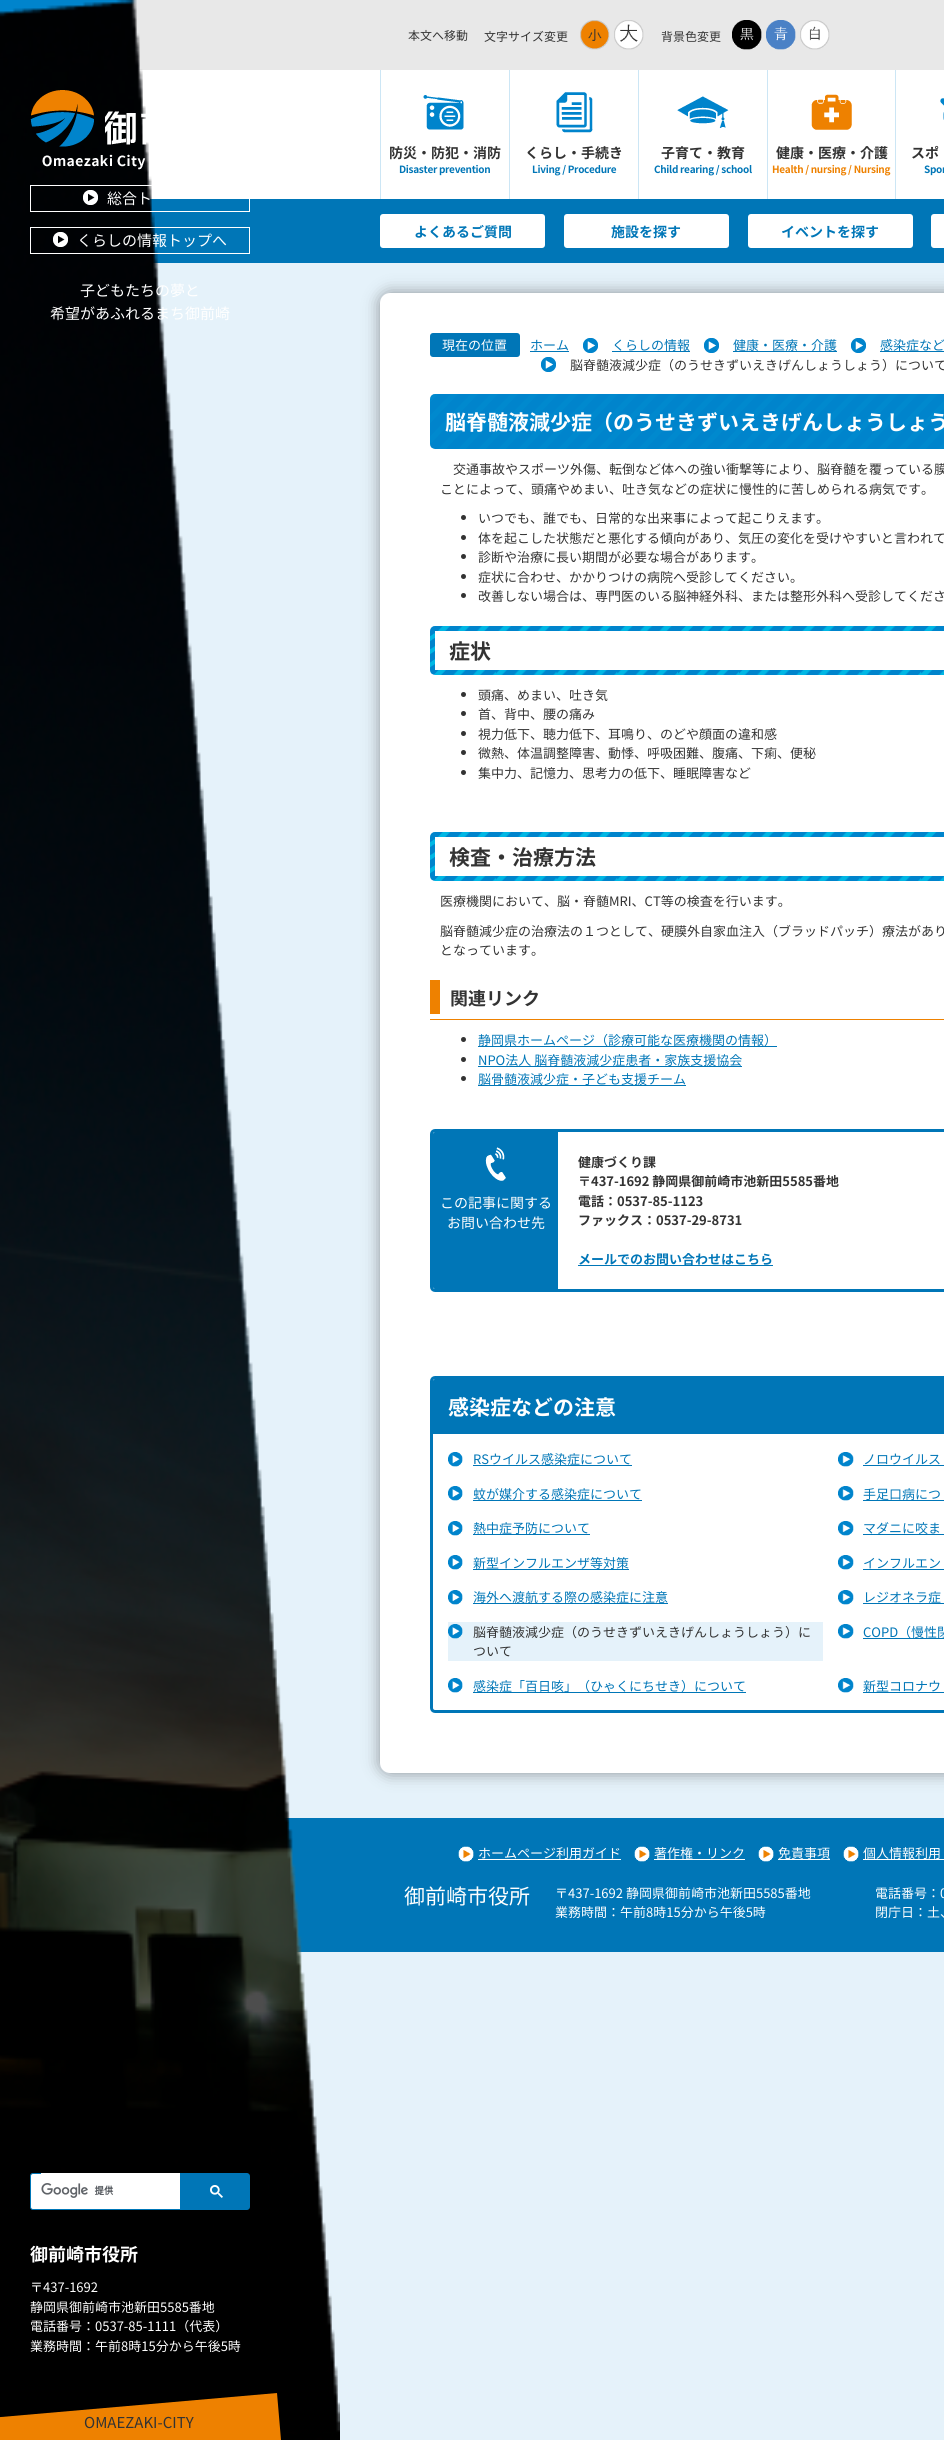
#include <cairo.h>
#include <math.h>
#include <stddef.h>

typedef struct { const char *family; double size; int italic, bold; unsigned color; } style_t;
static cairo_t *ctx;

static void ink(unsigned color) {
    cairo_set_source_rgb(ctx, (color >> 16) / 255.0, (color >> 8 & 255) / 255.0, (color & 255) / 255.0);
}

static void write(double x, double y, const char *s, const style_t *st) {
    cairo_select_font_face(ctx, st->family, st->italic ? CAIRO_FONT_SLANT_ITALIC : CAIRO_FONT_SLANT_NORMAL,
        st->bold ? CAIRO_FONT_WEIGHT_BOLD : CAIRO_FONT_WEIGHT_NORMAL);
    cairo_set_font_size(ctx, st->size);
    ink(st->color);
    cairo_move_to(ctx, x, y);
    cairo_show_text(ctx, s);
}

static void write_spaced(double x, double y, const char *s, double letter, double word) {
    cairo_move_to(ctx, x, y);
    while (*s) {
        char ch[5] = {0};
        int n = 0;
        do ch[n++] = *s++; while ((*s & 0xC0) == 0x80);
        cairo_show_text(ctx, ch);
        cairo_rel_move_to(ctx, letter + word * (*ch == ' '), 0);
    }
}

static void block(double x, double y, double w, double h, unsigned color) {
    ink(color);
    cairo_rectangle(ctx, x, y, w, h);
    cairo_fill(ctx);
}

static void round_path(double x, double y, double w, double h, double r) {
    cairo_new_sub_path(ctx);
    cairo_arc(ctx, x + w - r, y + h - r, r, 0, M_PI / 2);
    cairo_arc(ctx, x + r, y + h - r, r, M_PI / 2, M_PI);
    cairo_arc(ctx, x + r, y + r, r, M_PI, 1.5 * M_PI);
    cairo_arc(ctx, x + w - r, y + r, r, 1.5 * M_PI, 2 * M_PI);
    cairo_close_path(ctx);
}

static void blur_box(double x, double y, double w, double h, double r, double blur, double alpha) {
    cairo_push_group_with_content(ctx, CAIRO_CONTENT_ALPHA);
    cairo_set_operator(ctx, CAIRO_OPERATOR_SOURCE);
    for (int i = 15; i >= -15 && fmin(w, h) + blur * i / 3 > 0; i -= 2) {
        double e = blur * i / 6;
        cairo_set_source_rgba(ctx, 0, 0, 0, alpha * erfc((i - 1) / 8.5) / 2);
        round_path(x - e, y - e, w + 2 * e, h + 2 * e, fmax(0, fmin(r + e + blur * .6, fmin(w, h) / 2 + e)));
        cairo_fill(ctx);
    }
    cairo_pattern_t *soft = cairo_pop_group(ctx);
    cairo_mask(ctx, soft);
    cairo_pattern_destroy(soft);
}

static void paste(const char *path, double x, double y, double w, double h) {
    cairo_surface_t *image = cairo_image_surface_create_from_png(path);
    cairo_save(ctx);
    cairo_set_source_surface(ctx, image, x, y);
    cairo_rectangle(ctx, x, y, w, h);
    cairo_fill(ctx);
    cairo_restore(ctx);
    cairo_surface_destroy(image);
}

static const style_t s1 = {"Noto Sans JP", 12, 0, 0, 0x333333};
static const style_t s2 = {"Noto Sans JP", 14, 0, 1, 0x333333};
static const style_t s3 = {"Noto Sans JP", 15, 0, 0, 0xffffff};
static const style_t s4 = {"Noto Sans JP", 18, 0, 1, 0xffffff};
static const style_t s5 = {"Noto Sans JP", 13, 0, 0, 0xffffff};
static const style_t s6 = {"Noto Sans JP", 15, 0, 0, 0x333333};
static const style_t s7 = {"Noto Sans JP", 14, 0, 1, 0x0076b7};
static const style_t s8 = {"Noto Sans JP", 13, 0, 0, 0x0076b7};
static const style_t s9 = {"Noto Sans JP", 13, 0, 0, 0x333333};
static const style_t s10 = {"Noto Sans JP", 21, 0, 1, 0xffffff};
static const style_t s11 = {"Noto Sans JP", 21, 0, 1, 0x333333};
static const style_t s12 = {"Noto Sans JP", 18, 0, 1, 0x333333};
static const style_t s13 = {"Noto Sans JP", 14, 0, 0, 0xffffff};
static const style_t s14 = {"Noto Sans JP", 13, 0, 1, 0x333333};
static const style_t s15 = {"Noto Sans JP", 13, 0, 1, 0x0076b7};
static const style_t s16 = {"Noto Sans JP", 21, 0, 0, 0xffffff};

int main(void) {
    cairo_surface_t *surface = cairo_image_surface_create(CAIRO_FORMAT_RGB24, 944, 2440);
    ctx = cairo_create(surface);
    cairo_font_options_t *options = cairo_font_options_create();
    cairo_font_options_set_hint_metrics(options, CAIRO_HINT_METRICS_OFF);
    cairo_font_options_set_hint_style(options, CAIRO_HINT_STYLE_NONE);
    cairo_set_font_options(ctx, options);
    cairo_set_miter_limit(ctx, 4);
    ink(0xe5f2fa);
    cairo_paint(ctx);
    block(131, 0, 813, 70, 0xe8e8e8);
    write(408, 40, "本文へ移動", &s1);
    write(484, 41, "文字サイズ変更", &s1);
    paste("pic1.png", 580, 20, 30, 30);
    paste("pic2.png", 614, 20, 30, 30);
    write(661, 41, "背景色変更", &s1);
    paste("pic3.png", 732, 20, 30, 30);
    paste("pic4.png", 766, 20, 30, 30);
    paste("pic5.png", 800, 20, 30, 30);
    block(137, 70, 807, 129, 0xffffff);
    block(509, 70, 1, 129, 0xcce6f5);
    block(380, 70, 1, 129, 0xcce6f5);
    paste("pic6.png", 423, 95, 41, 35);
    write(389, 158, "防災・防犯・消防", &s2);
    cairo_set_font_size(ctx, 10);
    ink(0x0076b7);
    write_spaced(399, 173, "Disaster prevention", -0.3, 0);
    block(638, 70, 1, 129, 0xcce6f5);
    paste("pic7.png", 556, 92, 37, 41);
    write(525, 158, "くらし・手続き", &s2);
    cairo_set_font_size(ctx, 10);
    ink(0x0076b7);
    write_spaced(532, 173, "Living / Procedure", -0.3, 0);
    block(767, 70, 1, 129, 0xcce6f5);
    paste("pic8.png", 677, 96, 52, 32);
    write(661, 158, "子育て・教育", &s2);
    cairo_set_font_size(ctx, 10);
    ink(0x0076b7);
    write_spaced(654, 173, "Child rearing / school", -0.3, 0);
    block(895, 70, 1, 129, 0xcce6f5);
    paste("pic9.png", 811, 94, 41, 36);
    write(776, 158, "健康・医療・介護", &s2);
    cairo_set_font_size(ctx, 10);
    ink(0xee8100);
    write_spaced(772, 173, "Health / nursing / Nursing", -0.3, 0);
    paste("pic10.png", 940, 98, 4, 22);
    write(911, 158, "スポ", &s2);
    cairo_set_font_size(ctx, 10);
    ink(0x0076b7);
    write_spaced(924, 173, "Spor", -0.3, 0);
    block(147, 199, 797, 64, 0x0076b7);
    block(284, 1818, 660, 134, 0x0076b7);
    paste("pic11.png", 0, 0, 340, 2440);
    paste("pic12.png", 0, 0, 340, 2432);
    paste("pic13.png", 30, 90, 117, 80);
    cairo_rectangle(ctx, 30.5, 185.5, 219, 26);
    ink(0xffffff);
    cairo_set_line_width(ctx, 1);
    cairo_stroke(ctx);
    paste("pic14.png", 83, 190, 15, 15);
    write(107, 204, "総合ト", &s3);
    cairo_rectangle(ctx, 30.5, 227.5, 219, 26);
    cairo_stroke(ctx);
    paste("pic15.png", 53, 232, 15, 15);
    write(77, 246, "くらしの情報トップへ", &s3);
    write(80, 296, "子どもたちの夢と", &s3);
    write(50, 319, "希望があふれるまち御前崎", &s3);
    cairo_new_path(ctx);
    cairo_move_to(ctx, 33, 2173.5);
    cairo_line_to(ctx, 180.5, 2173.5);
    cairo_line_to(ctx, 180.5, 2209.5);
    cairo_line_to(ctx, 33, 2209.5);
    cairo_curve_to(ctx, 31.5, 2209.5, 30.5, 2208.5, 30.5, 2207);
    cairo_line_to(ctx, 30.5, 2176);
    cairo_curve_to(ctx, 30.5, 2174.5, 31.5, 2173.5, 33, 2173.5);
    cairo_close_path(ctx);
    cairo_fill_preserve(ctx);
    ink(0x0076b7);
    cairo_stroke(ctx);
    block(41, 2173, 139, 1, 0xffffff);
    paste("pic16.png", 41, 2183, 73, 15);
    ink(0x0076b7);
    cairo_new_path(ctx);
    cairo_move_to(ctx, 181, 2173);
    cairo_line_to(ctx, 247, 2173);
    cairo_curve_to(ctx, 248.5, 2173, 250, 2174.5, 250, 2176);
    cairo_line_to(ctx, 250, 2207);
    cairo_curve_to(ctx, 250, 2208.5, 248.5, 2210, 247, 2210);
    cairo_line_to(ctx, 181, 2210);
    cairo_close_path(ctx);
    cairo_fill(ctx);
    paste("pic17.png", 210, 2185, 13, 13);
    write(30, 2261, "御前崎市役所", &s4);
    write(30, 2292, "〒437-1692", &s5);
    write(30, 2312, "静岡県御前崎市池新田5585番地", &s5);
    write(30, 2331, "電話番号：0537-85-1111（代表）", &s5);
    write(30, 2351, "業務時間：午前8時15分から午後5時", &s5);
    ink(0xee8100);
    cairo_new_path(ctx);
    cairo_move_to(ctx, -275, 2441);
    cairo_line_to(ctx, 277, 2393);
    cairo_line_to(ctx, 285, 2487);
    cairo_line_to(ctx, -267, 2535);
    cairo_close_path(ctx);
    cairo_fill(ctx);
    write(84, 2428, "OMAEZAKI-CITY", &s6);
    ink(0xffffff);
    round_path(380, 214, 165, 34, 3);
    cairo_fill(ctx);
    write(414, 237, "よくあるご質問", &s7);
    ink(0xffffff);
    round_path(564, 214, 165, 34, 3);
    cairo_fill(ctx);
    write(611, 237, "施設を探す", &s7);
    ink(0xffffff);
    round_path(748, 214, 165, 34, 3);
    cairo_fill(ctx);
    write(781, 237, "イベントを探す", &s7);
    ink(0xffffff);
    round_path(931, 214, 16, 34, 3);
    cairo_fill(ctx);
    ink(0x040000);
    blur_box(380, 293, 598, 1480, 10, 8, 0.4);
    ink(0xffffff);
    round_path(380, 293, 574, 1480, 10);
    cairo_fill(ctx);
    ink(0x0076b7);
    round_path(430, 333, 90, 24, 3);
    cairo_fill(ctx);
    write(442, 350, "現在の位置", &s5);
    write(530, 350, "ホーム", &s8);
    block(530, 351, 39, 1, 0x0076b7);
    paste("pic18.png", 583, 338, 15, 15);
    write(612, 350, "くらしの情報", &s8);
    block(612, 351, 78, 1, 0x0076b7);
    paste("pic18.png", 704, 338, 15, 15);
    write(733, 350, "健康・医療・介護", &s8);
    block(733, 351, 104, 1, 0x0076b7);
    paste("pic18.png", 851, 338, 15, 15);
    write(880, 350, "感染症など", &s8);
    block(880, 351, 64, 1, 0x0076b7);
    paste("pic18.png", 541, 357, 15, 15);
    write(570, 370, "脳脊髄液減少症（のうせきずいえきげんしょうしょう）について", &s9);
    paste("pic19.png", 430, 394, 514, 55);
    write(445, 430, "脳脊髄液減少症（のうせきずいえきげんしょうしょう", &s10);
    write(453, 474, "交通事故やスポーツ外傷、転倒など体への強い衝撃等により、脳脊髄を覆っている膜", &s9);
    write(440, 494, "ことによって、頭痛やめまい、吐き気などの症状に慢性的に苦しめられる病気です。", &s9);
    cairo_new_path(ctx);
    cairo_arc(ctx, 463.5, 517.5, 2.5, 0, 2 * M_PI);
    cairo_fill(ctx);
    write(478, 523, "いつでも、誰でも、日常的な出来事によって起こりえます。", &s9);
    cairo_new_path(ctx);
    cairo_arc(ctx, 463.5, 537.5, 2.5, 0, 2 * M_PI);
    cairo_fill(ctx);
    write(478, 543, "体を起こした状態だと悪化する傾向があり、気圧の変化を受けやすいと言われて", &s9);
    cairo_new_path(ctx);
    cairo_arc(ctx, 463.5, 556.5, 2.5, 0, 2 * M_PI);
    cairo_fill(ctx);
    write(478, 562, "診断や治療に長い期間が必要な場合があります。", &s9);
    cairo_new_path(ctx);
    cairo_arc(ctx, 463.5, 576.5, 2.5, 0, 2 * M_PI);
    cairo_fill(ctx);
    write(478, 582, "症状に合わせ、かかりつけの病院へ受診してください。", &s9);
    cairo_new_path(ctx);
    cairo_arc(ctx, 463.5, 595.5, 2.5, 0, 2 * M_PI);
    cairo_fill(ctx);
    write(478, 601, "改善しない場合は、専門医のいる脳神経外科、または整形外科へ受診してくださ", &s9);
    paste("pic20.png", 430, 626, 514, 49);
    write(449, 659, "症状", &s11);
    cairo_new_path(ctx);
    cairo_arc(ctx, 463.5, 694.5, 2.5, 0, 2 * M_PI);
    cairo_fill(ctx);
    write(478, 700, "頭痛、めまい、吐き気", &s9);
    cairo_new_path(ctx);
    cairo_arc(ctx, 463.5, 713.5, 2.5, 0, 2 * M_PI);
    cairo_fill(ctx);
    write(478, 719, "首、背中、腰の痛み", &s9);
    cairo_new_path(ctx);
    cairo_arc(ctx, 463.5, 733.5, 2.5, 0, 2 * M_PI);
    cairo_fill(ctx);
    write(478, 739, "視力低下、聴力低下、耳鳴り、のどや顔面の違和感", &s9);
    cairo_new_path(ctx);
    cairo_arc(ctx, 463.5, 752.5, 2.5, 0, 2 * M_PI);
    cairo_fill(ctx);
    write(478, 758, "微熱、体温調整障害、動悸、呼吸困難、腹痛、下痢、便秘", &s9);
    cairo_new_path(ctx);
    cairo_arc(ctx, 463.5, 772.5, 2.5, 0, 2 * M_PI);
    cairo_fill(ctx);
    write(478, 778, "集中力、記憶力、思考力の低下、睡眠障害など", &s9);
    paste("pic20.png", 430, 832, 514, 49);
    write(449, 865, "検査・治療方法", &s11);
    write(440, 906, "医療機関において、脳・脊髄MRI、CT等の検査を行います。", &s9);
    write(440, 936, "脳脊髄減少症の治療法の１つとして、硬膜外自家血注入（ブラッドパッチ）療法があり", &s9);
    write(440, 955, "となっています。", &s9);
    block(430, 1019, 514, 1, 0xee8100);
    block(430, 980, 10, 34, 0xee8100);
    write(450, 1005, "関連リンク", &s12);
    cairo_new_path(ctx);
    cairo_arc(ctx, 463.5, 1039.5, 2.5, 0, 2 * M_PI);
    cairo_fill(ctx);
    block(478, 1046, 299, 1, 0x0076b7);
    write(478, 1045, "静岡県ホームページ（診療可能な医療機関の情報）", &s8);
    ink(0x333333);
    cairo_new_path(ctx);
    cairo_arc(ctx, 463.5, 1059.5, 2.5, 0, 2 * M_PI);
    cairo_fill(ctx);
    write(478, 1065, "NPO法人 脳脊髄液減少症患者・家族支援協会", &s8);
    block(478, 1066, 264, 1, 0x0076b7);
    ink(0x333333);
    cairo_new_path(ctx);
    cairo_arc(ctx, 463.5, 1078.5, 2.5, 0, 2 * M_PI);
    cairo_fill(ctx);
    write(478, 1084, "脳骨髄液減少症・子ども支援チーム", &s8);
    block(478, 1085, 208, 1, 0x0076b7);
    round_path(431.5, 1130.5, 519, 160, 3.5);
    cairo_set_line_width(ctx, 3);
    cairo_stroke(ctx);
    cairo_new_path(ctx);
    cairo_move_to(ctx, 435, 1132);
    cairo_line_to(ctx, 558, 1132);
    cairo_line_to(ctx, 558, 1289);
    cairo_line_to(ctx, 435, 1289);
    cairo_curve_to(ctx, 434, 1289, 433, 1288, 433, 1287);
    cairo_line_to(ctx, 433, 1134);
    cairo_curve_to(ctx, 433, 1133, 434, 1132, 435, 1132);
    cairo_close_path(ctx);
    cairo_fill(ctx);
    paste("pic21.png", 485, 1147, 21, 34);
    write(440, 1208, "この記事に関する", &s13);
    write(447, 1228, "お問い合わせ先", &s13);
    write(578, 1167, "健康づくり課", &s14);
    write(578, 1186, "〒437-1692 静岡県御前崎市池新田5585番地", &s14);
    write(578, 1206, "電話：0537-85-1123", &s14);
    write(578, 1225, "ファックス：0537-29-8731", &s14);
    block(578, 1265, 195, 1, 0x0076b7);
    write(578, 1264, "メールでのお問い合わせはこちら", &s15);
    round_path(431.5, 1377.5, 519, 334, 3.5);
    cairo_stroke(ctx);
    cairo_new_path(ctx);
    cairo_move_to(ctx, 435, 1379);
    cairo_line_to(ctx, 944, 1379);
    cairo_curve_to(ctx, 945, 1379, 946, 1380, 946, 1381);
    cairo_line_to(ctx, 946, 1434);
    cairo_line_to(ctx, 433, 1434);
    cairo_line_to(ctx, 433, 1381);
    cairo_curve_to(ctx, 433, 1380, 434, 1379, 435, 1379);
    cairo_close_path(ctx);
    cairo_fill(ctx);
    write(448, 1415, "感染症などの注意", &s10);
    paste("pic22.png", 448, 1452, 15, 15);
    write(473, 1464, "RSウイルス感染症について", &s8);
    block(473, 1465, 159, 1, 0x0076b7);
    paste("pic23.png", 838, 1452, 16, 15);
    write(863, 1464, "ノロウイルス", &s8);
    block(863, 1465, 81, 1, 0x0076b7);
    paste("pic22.png", 448, 1486, 15, 15);
    write(473, 1499, "蚊が媒介する感染症について", &s8);
    block(473, 1500, 169, 1, 0x0076b7);
    paste("pic23.png", 838, 1486, 16, 15);
    write(863, 1499, "手足口病につ", &s8);
    block(863, 1500, 81, 1, 0x0076b7);
    paste("pic22.png", 448, 1521, 15, 15);
    write(473, 1533, "熱中症予防について", &s8);
    block(473, 1534, 117, 1, 0x0076b7);
    paste("pic23.png", 838, 1521, 16, 15);
    write(863, 1533, "マダニに咬ま", &s8);
    block(863, 1534, 81, 1, 0x0076b7);
    paste("pic24.png", 448, 1555, 15, 15);
    block(473, 1569, 156, 1, 0x0076b7);
    write(473, 1568, "新型インフルエンザ等対策", &s8);
    paste("pic25.png", 838, 1555, 16, 15);
    write(863, 1568, "インフルエン", &s8);
    block(863, 1569, 81, 1, 0x0076b7);
    paste("pic22.png", 448, 1590, 15, 15);
    write(473, 1602, "海外へ渡航する際の感染症に注意", &s8);
    block(473, 1603, 195, 1, 0x0076b7);
    paste("pic23.png", 838, 1590, 16, 15);
    write(863, 1602, "レジオネラ症", &s8);
    block(863, 1603, 81, 1, 0x0076b7);
    block(448, 1622, 375, 39, 0xe5f2fa);
    paste("pic26.png", 448, 1624, 15, 15);
    write(473, 1637, "脳脊髄液減少症（のうせきずいえきげんしょうしょう）に", &s9);
    write(473, 1656, "ついて", &s9);
    paste("pic23.png", 838, 1624, 16, 15);
    block(863, 1638, 81, 1, 0x0076b7);
    write(863, 1637, "COPD（慢性閉", &s8);
    paste("pic27.png", 448, 1678, 15, 15);
    block(473, 1692, 273, 1, 0x0076b7);
    write(473, 1691, "感染症「百日咳」（ひゃくにちせき）について", &s8);
    paste("pic28.png", 838, 1678, 16, 15);
    block(863, 1692, 81, 1, 0x0076b7);
    write(863, 1691, "新型コロナウ", &s8);
    paste("pic29.png", 458, 1846, 16, 16);
    block(478, 1859, 143, 1, 0xffffff);
    write(478, 1858, "ホームページ利用ガイド", &s5);
    paste("pic29.png", 634, 1846, 16, 16);
    write(654, 1858, "著作権・リンク", &s5);
    block(654, 1859, 91, 1, 0xffffff);
    paste("pic29.png", 758, 1846, 16, 16);
    block(778, 1859, 52, 1, 0xffffff);
    write(778, 1858, "免責事項", &s5);
    paste("pic29.png", 843, 1846, 16, 16);
    block(863, 1859, 81, 1, 0xffffff);
    write(863, 1858, "個人情報利用", &s5);
    write(404, 1904, "御前崎市役所", &s16);
    write(555, 1898, "〒437-1692 静岡県御前崎市池新田5585番地", &s5);
    write(555, 1917, "業務時間：午前8時15分から午後5時", &s5);
    write(875, 1898, "電話番号：0", &s5);
    write(875, 1917, "閉庁日：土、", &s5);
    cairo_surface_write_to_png(surface, "screenshot.png");
    cairo_font_options_destroy(options);
    cairo_destroy(ctx);
    cairo_surface_destroy(surface);
    return 0;
}
